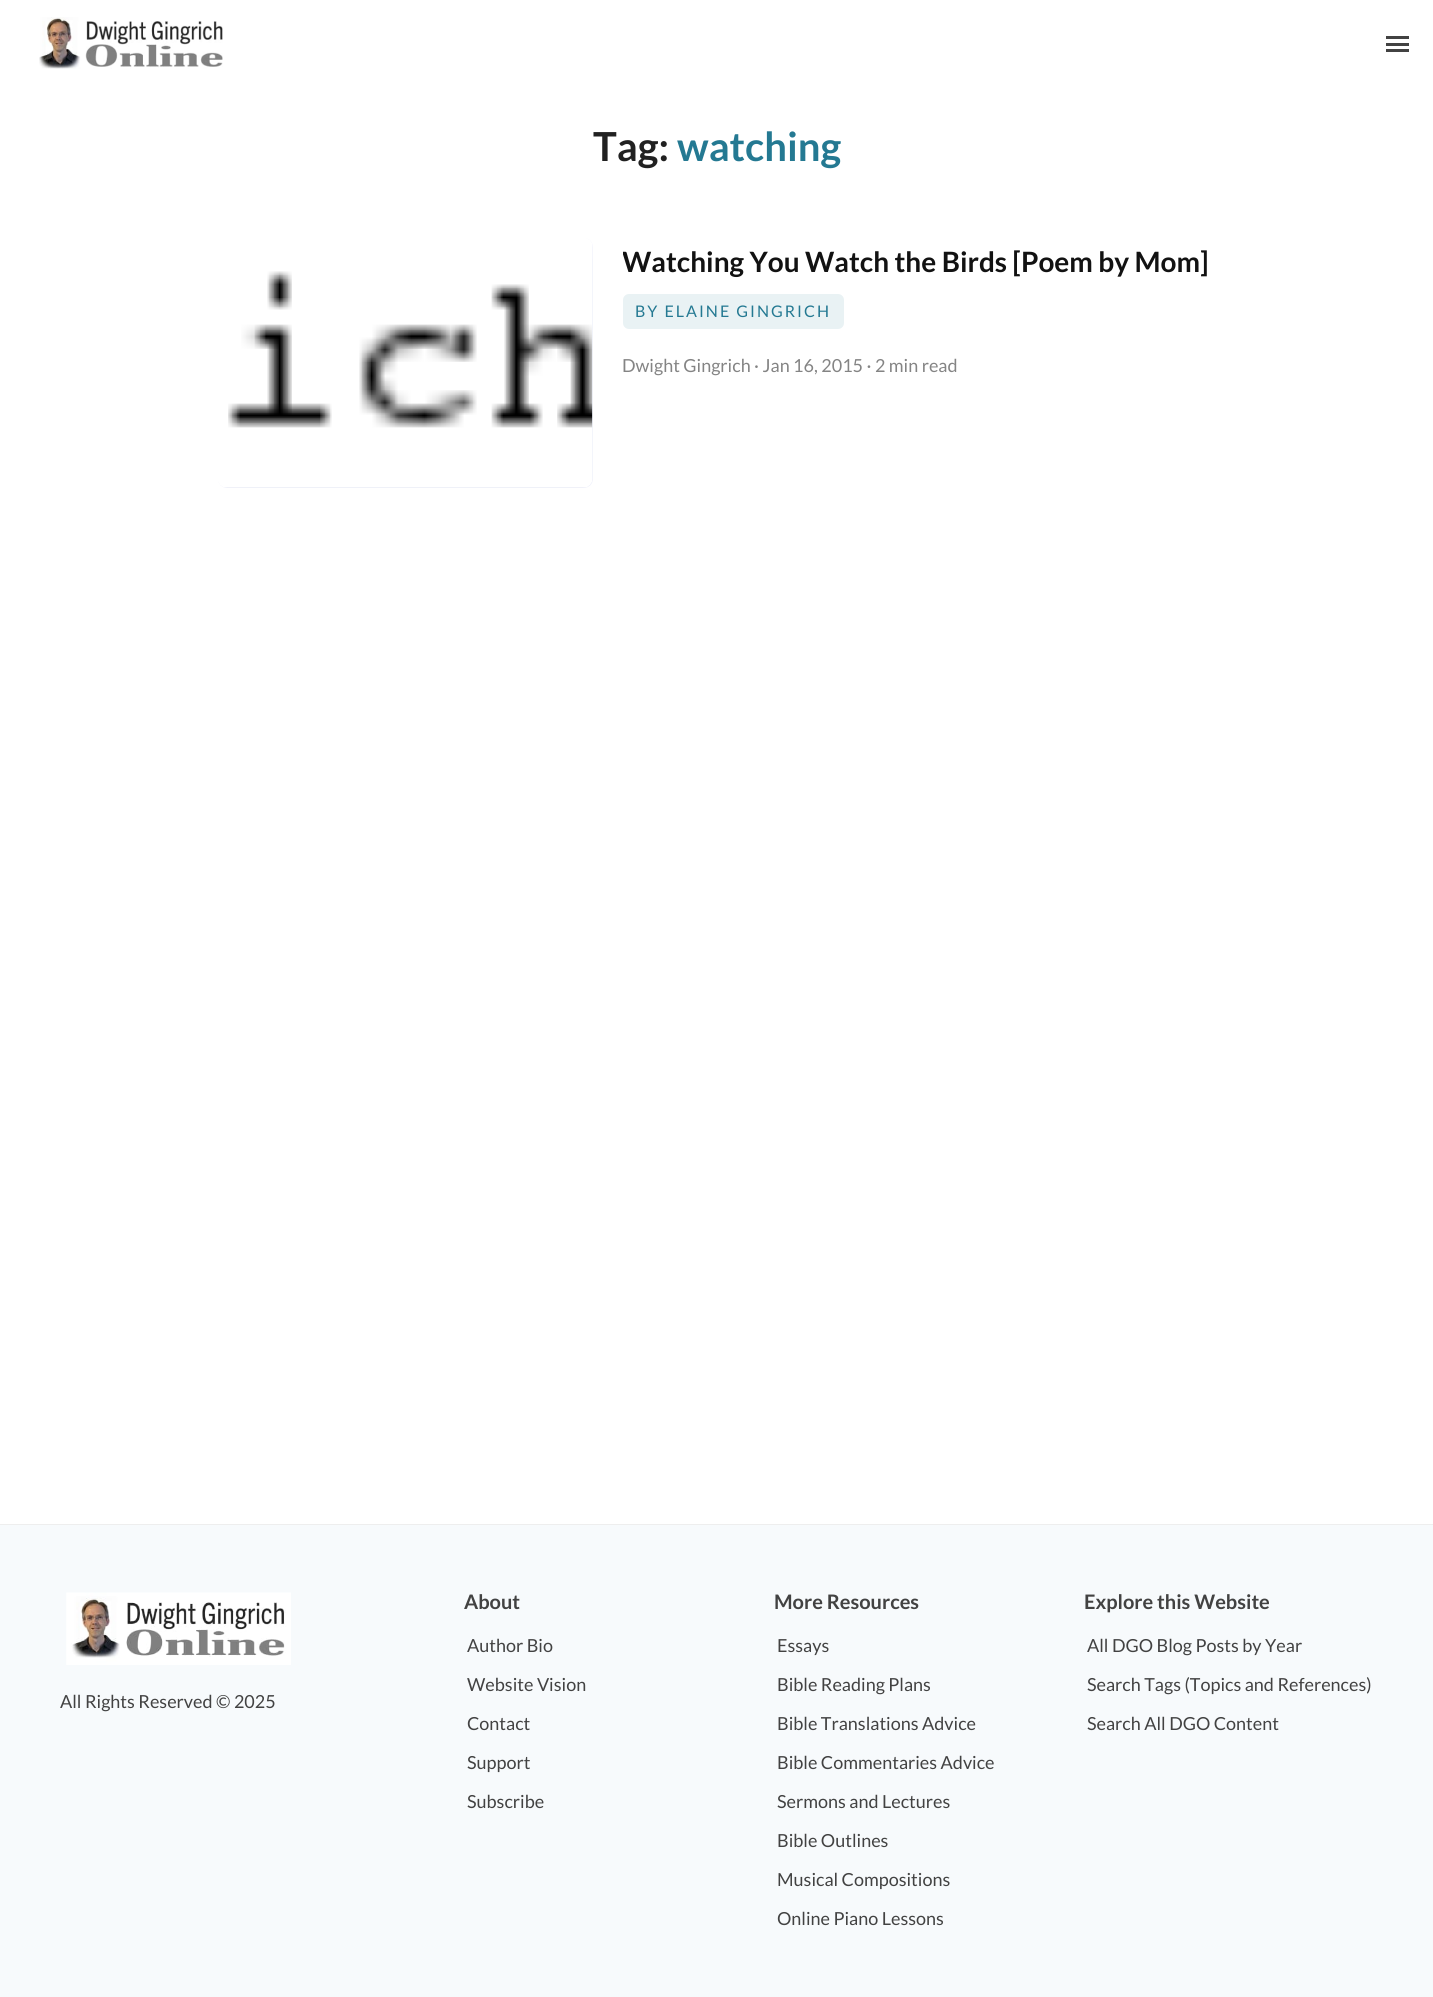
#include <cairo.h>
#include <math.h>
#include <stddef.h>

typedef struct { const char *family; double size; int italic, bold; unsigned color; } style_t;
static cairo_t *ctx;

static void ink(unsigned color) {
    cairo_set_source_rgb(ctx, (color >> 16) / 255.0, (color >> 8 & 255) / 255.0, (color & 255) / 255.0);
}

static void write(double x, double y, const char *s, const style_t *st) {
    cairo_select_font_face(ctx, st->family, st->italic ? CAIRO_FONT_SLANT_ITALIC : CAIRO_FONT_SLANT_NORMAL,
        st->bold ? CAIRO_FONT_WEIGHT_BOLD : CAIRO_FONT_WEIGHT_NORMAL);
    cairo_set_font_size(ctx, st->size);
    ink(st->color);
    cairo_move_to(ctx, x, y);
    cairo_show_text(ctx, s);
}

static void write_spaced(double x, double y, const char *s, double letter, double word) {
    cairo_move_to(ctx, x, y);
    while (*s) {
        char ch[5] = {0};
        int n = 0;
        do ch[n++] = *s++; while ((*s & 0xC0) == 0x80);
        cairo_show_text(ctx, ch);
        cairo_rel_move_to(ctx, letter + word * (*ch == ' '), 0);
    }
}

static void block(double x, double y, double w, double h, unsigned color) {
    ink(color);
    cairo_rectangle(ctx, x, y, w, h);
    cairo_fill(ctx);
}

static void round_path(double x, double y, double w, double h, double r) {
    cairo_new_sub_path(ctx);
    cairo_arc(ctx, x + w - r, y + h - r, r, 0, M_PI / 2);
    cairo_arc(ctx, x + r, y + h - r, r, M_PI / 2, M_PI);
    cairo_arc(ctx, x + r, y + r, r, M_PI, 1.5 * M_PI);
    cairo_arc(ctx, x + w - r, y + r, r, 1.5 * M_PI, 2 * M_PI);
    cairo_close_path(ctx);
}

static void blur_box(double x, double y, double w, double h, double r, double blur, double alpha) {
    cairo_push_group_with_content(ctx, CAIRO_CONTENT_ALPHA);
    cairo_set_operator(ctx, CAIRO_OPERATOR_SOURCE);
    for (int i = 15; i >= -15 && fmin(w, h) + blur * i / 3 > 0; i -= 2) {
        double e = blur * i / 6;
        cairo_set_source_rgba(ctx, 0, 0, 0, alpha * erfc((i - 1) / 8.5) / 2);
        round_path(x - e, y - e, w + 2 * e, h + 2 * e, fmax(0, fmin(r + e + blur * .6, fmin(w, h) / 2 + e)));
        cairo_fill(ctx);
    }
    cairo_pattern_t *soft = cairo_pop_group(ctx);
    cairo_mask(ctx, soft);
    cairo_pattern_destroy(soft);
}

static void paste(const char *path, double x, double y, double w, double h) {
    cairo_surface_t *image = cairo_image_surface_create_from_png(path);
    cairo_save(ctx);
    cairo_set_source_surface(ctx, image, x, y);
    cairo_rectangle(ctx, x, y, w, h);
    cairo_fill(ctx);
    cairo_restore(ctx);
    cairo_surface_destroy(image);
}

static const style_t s1 = {"Lato", 40, 0, 1, 0x212121};
static const style_t s2 = {"Lato", 40, 0, 1, 0x247992};
static const style_t s3 = {"Lato", 28, 0, 1, 0x121212};
static const style_t s4 = {"Lato", 18, 0, 0, 0x848484};
static const style_t s5 = {"Lato", 18, 0, 0, 0x424242};
static const style_t s6 = {"Lato", 20, 0, 1, 0x424242};

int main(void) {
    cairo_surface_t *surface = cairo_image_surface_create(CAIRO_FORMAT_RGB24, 1433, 1997);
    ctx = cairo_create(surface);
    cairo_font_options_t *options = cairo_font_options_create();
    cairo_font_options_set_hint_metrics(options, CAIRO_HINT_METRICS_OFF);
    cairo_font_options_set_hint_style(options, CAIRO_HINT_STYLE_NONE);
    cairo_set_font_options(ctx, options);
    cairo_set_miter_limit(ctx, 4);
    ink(0xffffff);
    cairo_paint(ctx);
    paste("pic1.png", 39, 17, 184, 52);
    block(1386, 43, 23, 3, 0x424242);
    block(1386, 36, 23, 3, 0x424242);
    block(1386, 49, 23, 3, 0x424242);
    write(593, 161, "Tag:", &s1);
    write(677, 161, "watching", &s2);
    ink(0xf8f8ff);
    round_path(218, 238, 375, 250, 9);
    cairo_fill(ctx);
    cairo_save(ctx);
    round_path(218, 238, 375, 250, 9);
    cairo_clip(ctx);
    ink(0x96aab4);
    blur_box(230, 259, 350, 225, 0, 19, 0.25);
    cairo_restore(ctx);
    paste("pic2.png", 218, 238, 375, 249);
    cairo_save(ctx);
    cairo_rectangle(ctx, 623, 238, 595, 250);
    cairo_clip(ctx);
    write(622, 272, "Watching You Watch the Birds [Poem by Mom]", &s3);
    cairo_restore(ctx);
    ink(0xe9f2f4);
    round_path(623, 294, 221, 35, 6);
    cairo_fill(ctx);
    cairo_select_font_face(ctx, "Lato", CAIRO_FONT_SLANT_NORMAL, CAIRO_FONT_WEIGHT_NORMAL);
    cairo_set_font_size(ctx, 16);
    ink(0x247992);
    write_spaced(635, 317, "BY ELAINE GINGRICH", 2, 0);
    write(622, 372, "Dwight Gingrich · Jan 16, 2015 · 2 min read", &s4);
    block(0, 1525, 1433, 472, 0xf7fafc);
    block(0, 1524, 1433, 1, 0xeeeeee);
    paste("pic3.png", 66, 1592, 225, 73);
    write(60, 1708, "All Rights Reserved © 2025", &s5);
    write(464, 1609, "About", &s6);
    write(467, 1652, "Author Bio", &s5);
    write(467, 1691, "Website Vision", &s5);
    write(467, 1730, "Contact", &s5);
    write(467, 1769, "Support", &s5);
    write(467, 1808, "Subscribe", &s5);
    write(774, 1609, "More Resources", &s6);
    write(777, 1652, "Essays", &s5);
    write(777, 1691, "Bible Reading Plans", &s5);
    write(777, 1730, "Bible Translations Advice", &s5);
    write(777, 1769, "Bible Commentaries Advice", &s5);
    write(777, 1808, "Sermons and Lectures", &s5);
    write(777, 1847, "Bible Outlines", &s5);
    write(777, 1886, "Musical Compositions", &s5);
    write(777, 1925, "Online Piano Lessons", &s5);
    write(1084, 1609, "Explore this Website", &s6);
    write(1087, 1652, "All DGO Blog Posts by Year", &s5);
    write(1087, 1691, "Search Tags (Topics and References)", &s5);
    write(1087, 1730, "Search All DGO Content", &s5);
    cairo_surface_write_to_png(surface, "screenshot.png");
    cairo_font_options_destroy(options);
    cairo_destroy(ctx);
    cairo_surface_destroy(surface);
    return 0;
}
